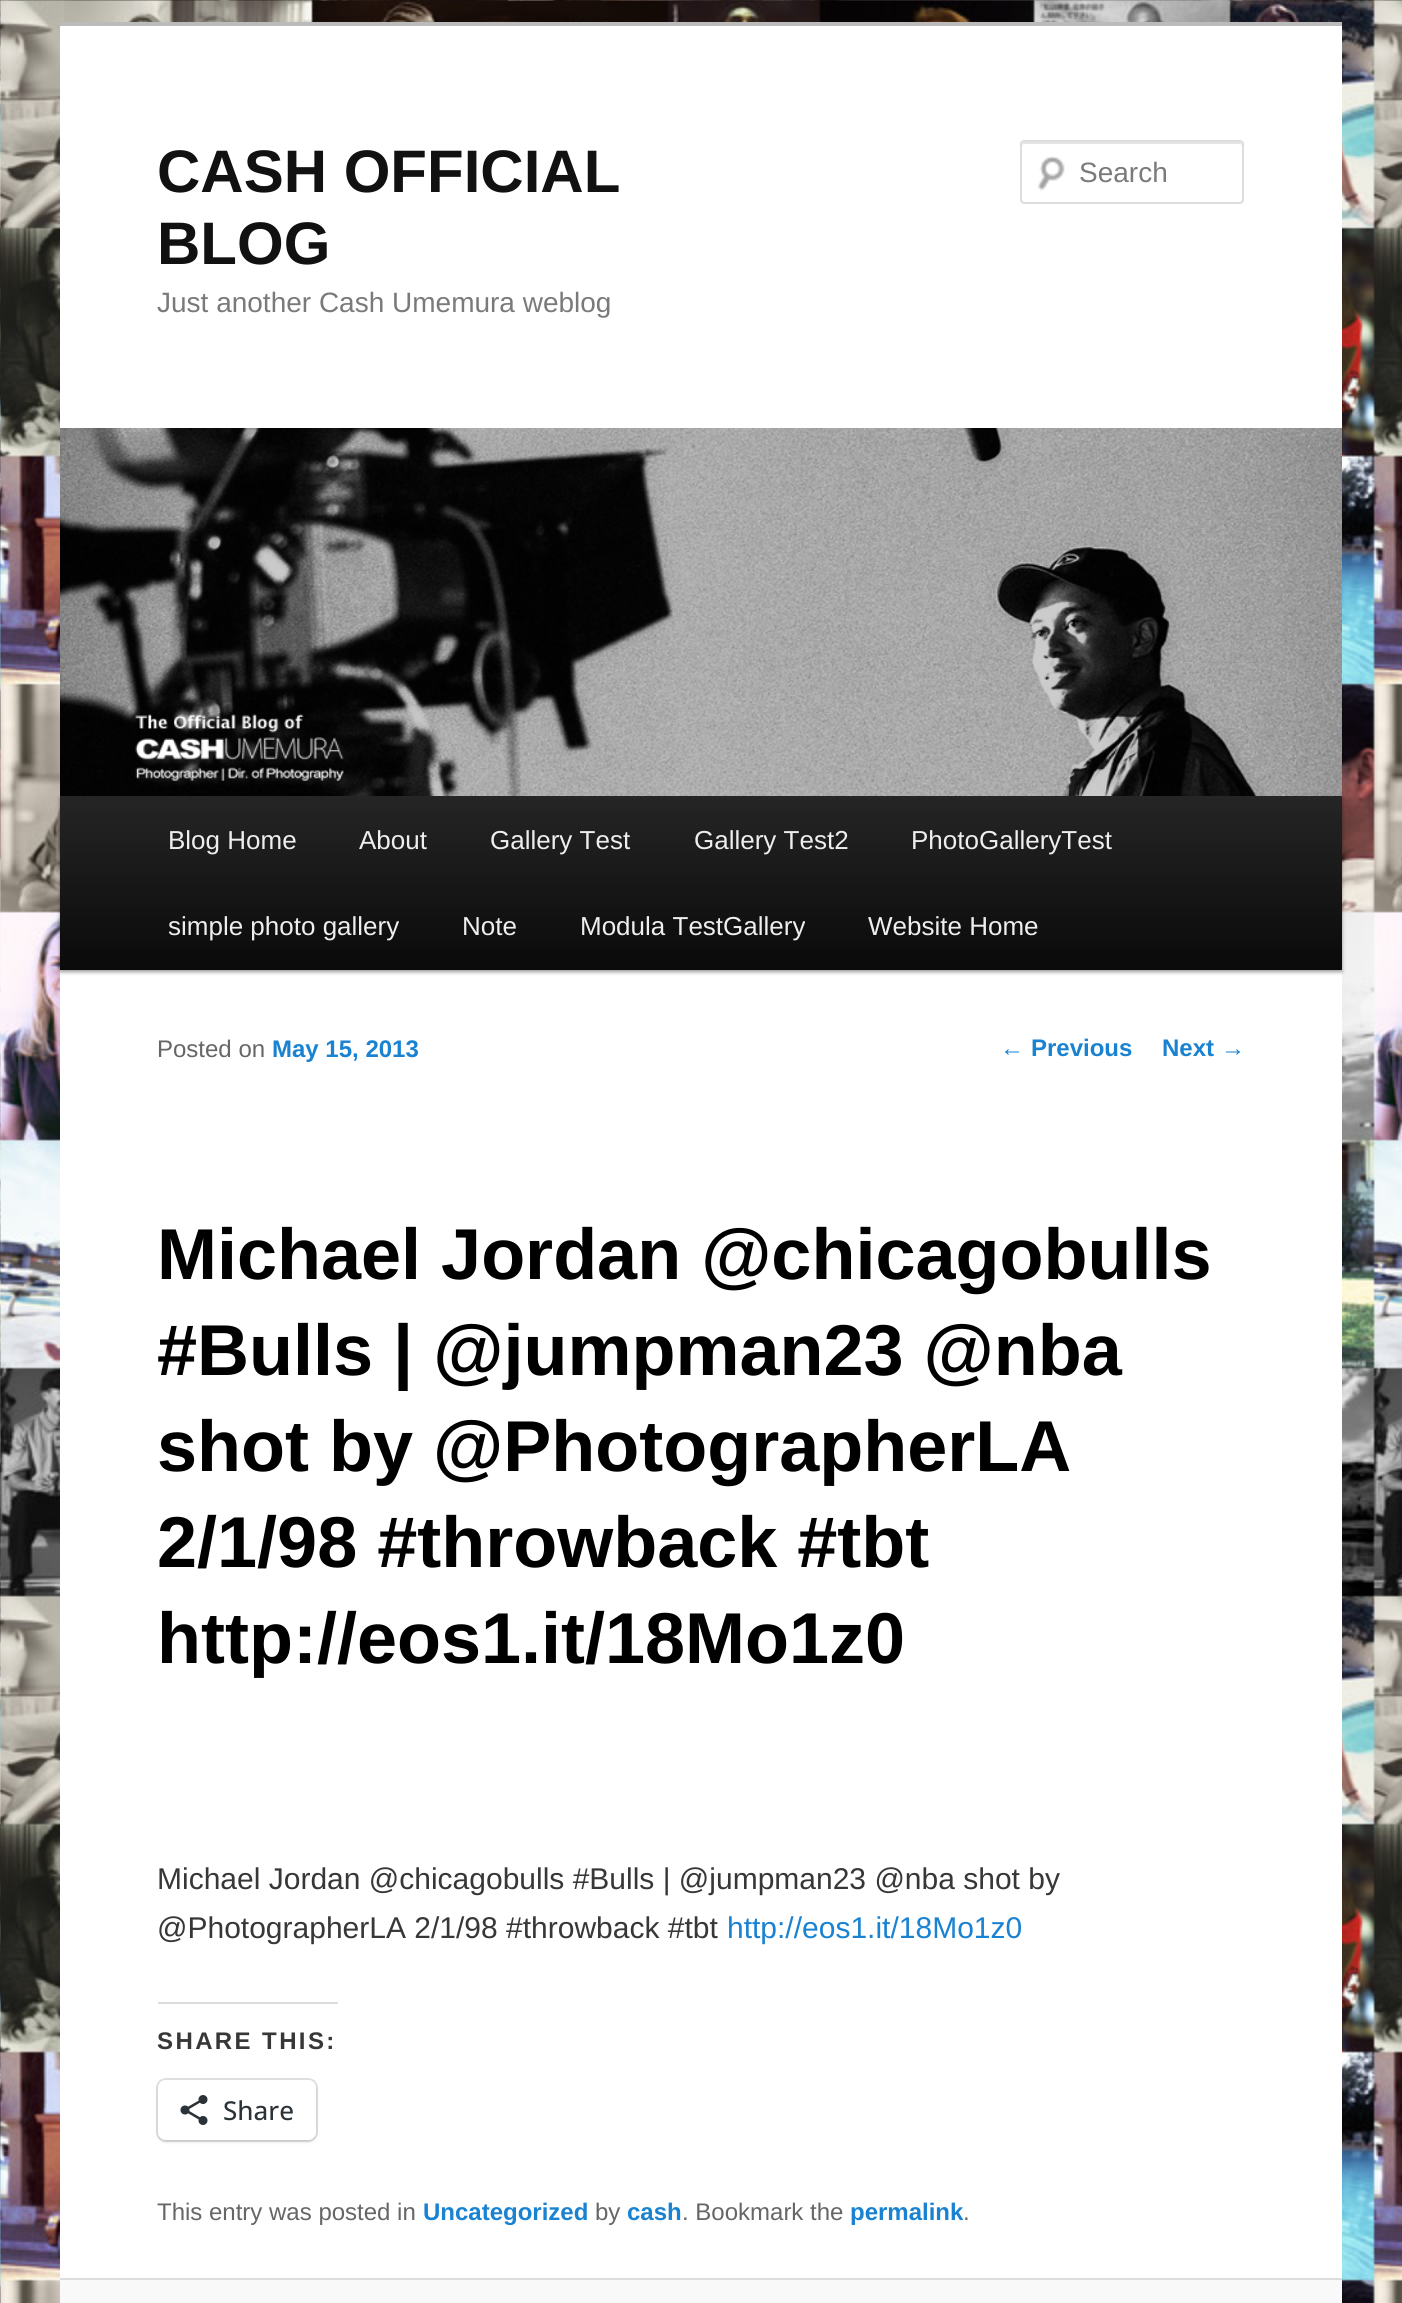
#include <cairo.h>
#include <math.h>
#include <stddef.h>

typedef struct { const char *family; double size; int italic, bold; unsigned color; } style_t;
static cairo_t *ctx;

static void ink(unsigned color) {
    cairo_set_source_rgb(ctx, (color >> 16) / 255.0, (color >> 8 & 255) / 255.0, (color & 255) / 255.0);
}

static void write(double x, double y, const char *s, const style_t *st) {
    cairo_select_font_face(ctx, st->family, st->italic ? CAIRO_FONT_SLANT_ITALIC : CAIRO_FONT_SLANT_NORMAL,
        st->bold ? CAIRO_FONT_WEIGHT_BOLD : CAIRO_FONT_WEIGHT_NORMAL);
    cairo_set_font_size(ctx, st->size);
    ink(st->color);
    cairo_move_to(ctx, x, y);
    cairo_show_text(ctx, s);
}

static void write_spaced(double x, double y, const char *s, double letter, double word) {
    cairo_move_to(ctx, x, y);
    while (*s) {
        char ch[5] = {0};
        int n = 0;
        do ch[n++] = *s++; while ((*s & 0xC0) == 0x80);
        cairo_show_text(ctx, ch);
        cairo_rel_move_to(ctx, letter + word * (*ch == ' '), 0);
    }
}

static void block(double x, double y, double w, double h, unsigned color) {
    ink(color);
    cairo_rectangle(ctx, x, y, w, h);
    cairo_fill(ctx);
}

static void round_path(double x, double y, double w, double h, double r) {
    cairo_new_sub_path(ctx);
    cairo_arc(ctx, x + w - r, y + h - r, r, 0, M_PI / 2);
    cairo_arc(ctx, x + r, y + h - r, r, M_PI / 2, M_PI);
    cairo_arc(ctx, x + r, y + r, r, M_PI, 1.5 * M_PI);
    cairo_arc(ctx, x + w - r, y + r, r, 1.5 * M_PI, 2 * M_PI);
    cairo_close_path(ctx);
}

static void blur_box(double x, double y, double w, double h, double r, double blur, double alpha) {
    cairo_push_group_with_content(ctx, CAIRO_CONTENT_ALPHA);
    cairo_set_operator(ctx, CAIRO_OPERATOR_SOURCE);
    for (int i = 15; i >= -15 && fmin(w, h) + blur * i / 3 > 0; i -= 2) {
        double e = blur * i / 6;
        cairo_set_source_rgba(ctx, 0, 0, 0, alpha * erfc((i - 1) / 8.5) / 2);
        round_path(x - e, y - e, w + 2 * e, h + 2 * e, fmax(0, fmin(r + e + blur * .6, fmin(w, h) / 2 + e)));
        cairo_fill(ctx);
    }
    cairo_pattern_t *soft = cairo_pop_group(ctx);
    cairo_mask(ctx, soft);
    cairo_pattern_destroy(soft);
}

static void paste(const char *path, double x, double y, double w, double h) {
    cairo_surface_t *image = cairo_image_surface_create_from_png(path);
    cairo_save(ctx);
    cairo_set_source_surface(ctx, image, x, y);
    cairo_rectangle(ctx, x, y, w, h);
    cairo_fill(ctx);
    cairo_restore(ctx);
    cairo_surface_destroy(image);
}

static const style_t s1 = {"Liberation Sans", 60, 0, 1, 0x111111};
static const style_t s2 = {"Liberation Sans", 28, 0, 0, 0x7a7a7a};
static const style_t s3 = {"Liberation Sans", 26, 0, 0, 0xeeeeee};
static const style_t s4 = {"Liberation Sans", 24, 0, 0, 0x1982d1};
static const style_t s5 = {"Liberation Sans", 24, 0, 1, 0x1982d1};
static const style_t s6 = {"Liberation Sans", 24, 0, 0, 0x666666};
static const style_t s7 = {"Liberation Sans", 72, 0, 1, 0x000000};
static const style_t s8 = {"Liberation Sans", 30, 0, 0, 0x373737};
static const style_t s9 = {"Liberation Sans", 30, 0, 0, 0x1982d1};
static const style_t s10 = {"Open Sans Medium", 26, 0, 0, 0x2c3338};

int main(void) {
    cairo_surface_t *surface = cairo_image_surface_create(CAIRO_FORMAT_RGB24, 1402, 2303);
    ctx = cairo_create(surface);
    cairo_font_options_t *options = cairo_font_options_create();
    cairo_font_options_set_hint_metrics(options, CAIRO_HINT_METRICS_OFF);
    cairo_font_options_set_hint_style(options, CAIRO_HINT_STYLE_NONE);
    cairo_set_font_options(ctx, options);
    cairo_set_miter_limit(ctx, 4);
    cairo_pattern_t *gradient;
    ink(0xffffff);
    cairo_paint(ctx);
    paste("pic1.png", 0, 0, 1402, 2303);
    block(60, 26, 1282, 2252, 0xffffff);
    block(60, 22, 1282, 4, 0xbbbbbb);
    write(157, 192, "CASH OFFICIAL", &s1);
    write(157, 264, "BLOG", &s1);
    write(157, 312, "Just another Cash Umemura weblog", &s2);
    paste("pic2.png", 1037, 156, 28, 35);
    ink(0xe6e6e6);
    cairo_new_path(ctx);
    cairo_move_to(ctx, 1024, 144);
    cairo_line_to(ctx, 1240, 144);
    cairo_curve_to(ctx, 1241, 144, 1242, 145, 1242, 146);
    cairo_line_to(ctx, 1242, 144);
    cairo_curve_to(ctx, 1242, 143, 1241, 142, 1240, 142);
    cairo_line_to(ctx, 1024, 142);
    cairo_curve_to(ctx, 1023, 142, 1022, 143, 1022, 144);
    cairo_line_to(ctx, 1022, 146);
    cairo_curve_to(ctx, 1022, 145, 1023, 144, 1024, 144);
    cairo_close_path(ctx);
    cairo_fill(ctx);
    round_path(1021, 141, 222, 62, 3);
    ink(0xdddddd);
    cairo_stroke(ctx);
    write(1079, 182, "Search", &s2);
    ink(0x000000);
    blur_box(60, 798, 1282, 174, 0, 2, 0.4);
    paste("pic3.png", 60, 428, 1282, 368);
    gradient = cairo_pattern_create_linear(701, 796, 701, 970);
    cairo_pattern_add_color_stop_rgba(gradient, 0, 0.145, 0.145, 0.145, 1);
    cairo_pattern_add_color_stop_rgba(gradient, 1, 0.039, 0.039, 0.039, 1);
    cairo_set_source(ctx, gradient);
    cairo_pattern_destroy(gradient);
    cairo_rectangle(ctx, 60, 796, 1282, 174);
    cairo_fill(ctx);
    write(168, 849, "Blog Home", &s3);
    write(359, 849, "About", &s3);
    write(490, 849, "Gallery Test", &s3);
    write(694, 849, "Gallery Test2", &s3);
    write(911, 849, "PhotoGalleryTest", &s3);
    write(168, 935, "simple photo gallery", &s3);
    write(462, 935, "Note", &s3);
    write(580, 935, "Modula TestGallery", &s3);
    write(868, 935, "Website Home", &s3);
    write(1000, 1056, "←", &s4);
    write(1031, 1056, "Previous", &s5);
    write(1162, 1056, "Next", &s5);
    write(1221, 1056, "→", &s4);
    write(157, 1057, "Posted on", &s6);
    write(272, 1057, "May 15, 2013", &s5);
    write(157, 1279, "Michael Jordan @chicagobulls", &s7);
    write(157, 1375, "#Bulls | @jumpman23 @nba", &s7);
    write(157, 1471, "shot by @PhotographerLA", &s7);
    write(157, 1567, "2/1/98 #throwback #tbt", &s7);
    write(157, 1663, "http://eos1.it/18Mo1z0", &s7);
    write(157, 1889, "Michael Jordan @chicagobulls #Bulls | @jumpman23 @nba shot by", &s8);
    write(157, 1938, "@PhotographerLA 2/1/98 #throwback #tbt", &s8);
    write(727, 1938, "http://eos1.it/18Mo1z0", &s9);
    block(158, 2002, 180, 2, 0xdcdcde);
    cairo_select_font_face(ctx, "Liberation Sans", CAIRO_FONT_SLANT_NORMAL, CAIRO_FONT_WEIGHT_BOLD);
    cairo_set_font_size(ctx, 24);
    ink(0x373737);
    write_spaced(157, 2049, "SHARE THIS:", 2.4, 0);
    round_path(157, 2079, 160, 62, 9);
    ink(0xe0e0e0);
    cairo_stroke(ctx);
    ink(0x000000);
    blur_box(158, 2082, 158, 60, 8, 2, 0.12);
    ink(0xffffff);
    round_path(158, 2080, 158, 60, 8);
    cairo_fill(ctx);
    paste("pic4.png", 180, 2095, 28, 30);
    write(223, 2120, "Share", &s10);
    write(157, 2220, "This entry was posted in", &s6);
    write(423, 2220, "Uncategorized", &s5);
    write(595, 2220, "by", &s6);
    write(627, 2220, "cash", &s5);
    write(682, 2220, ". Bookmark the", &s6);
    write(850, 2220, "permalink", &s5);
    write(963, 2220, ".", &s6);
    block(60, 2280, 1282, 23, 0xf9f9f9);
    block(60, 2278, 1282, 2, 0xdddddd);
    cairo_surface_write_to_png(surface, "screenshot.png");
    cairo_font_options_destroy(options);
    cairo_destroy(ctx);
    cairo_surface_destroy(surface);
    return 0;
}
